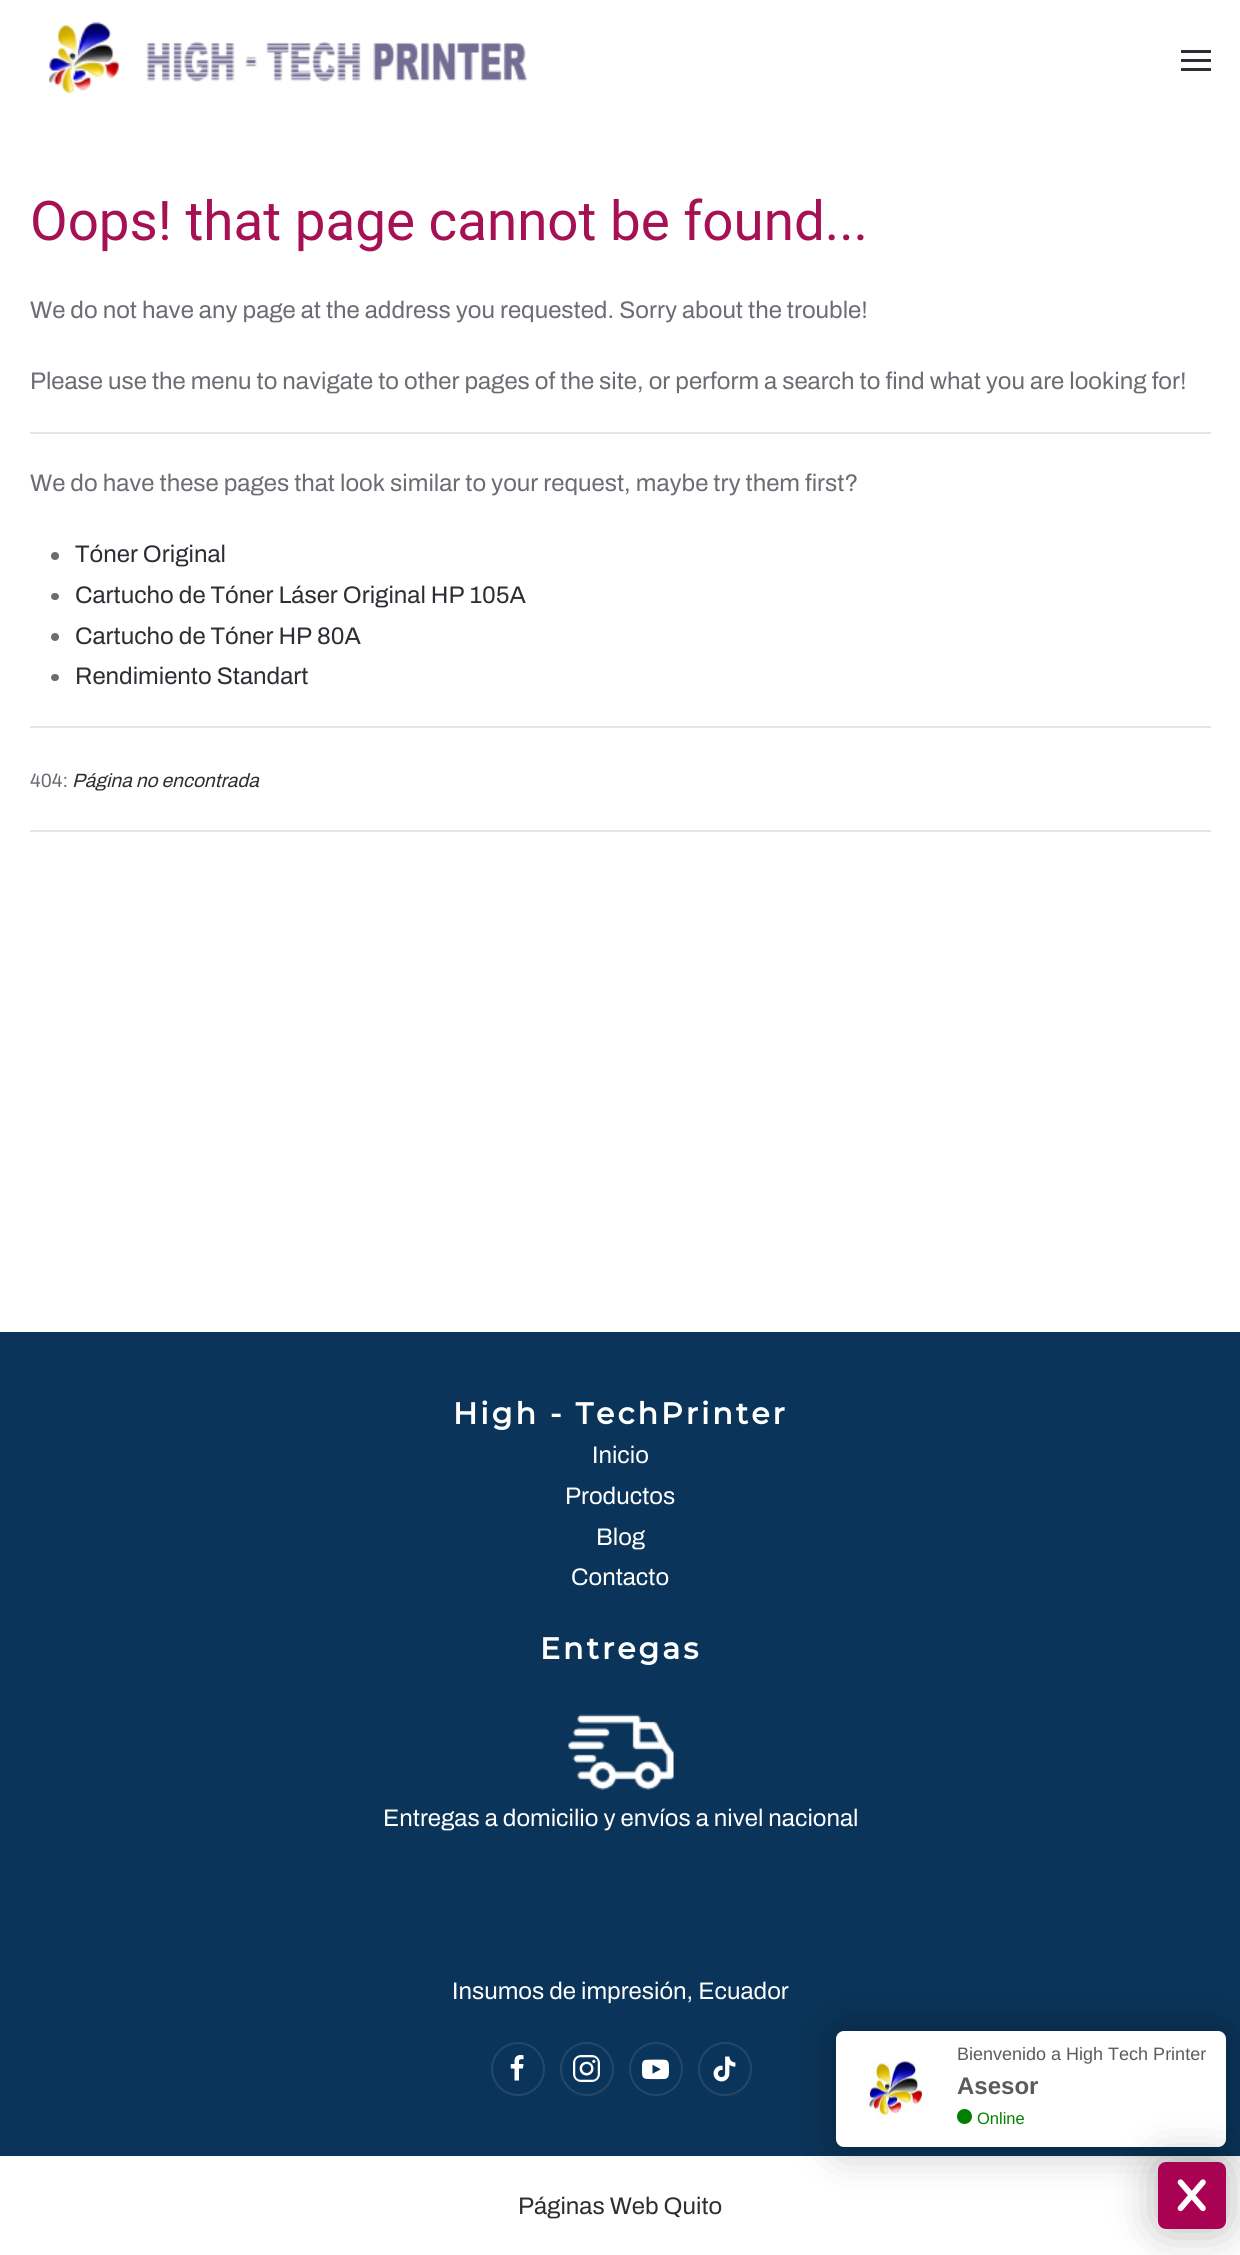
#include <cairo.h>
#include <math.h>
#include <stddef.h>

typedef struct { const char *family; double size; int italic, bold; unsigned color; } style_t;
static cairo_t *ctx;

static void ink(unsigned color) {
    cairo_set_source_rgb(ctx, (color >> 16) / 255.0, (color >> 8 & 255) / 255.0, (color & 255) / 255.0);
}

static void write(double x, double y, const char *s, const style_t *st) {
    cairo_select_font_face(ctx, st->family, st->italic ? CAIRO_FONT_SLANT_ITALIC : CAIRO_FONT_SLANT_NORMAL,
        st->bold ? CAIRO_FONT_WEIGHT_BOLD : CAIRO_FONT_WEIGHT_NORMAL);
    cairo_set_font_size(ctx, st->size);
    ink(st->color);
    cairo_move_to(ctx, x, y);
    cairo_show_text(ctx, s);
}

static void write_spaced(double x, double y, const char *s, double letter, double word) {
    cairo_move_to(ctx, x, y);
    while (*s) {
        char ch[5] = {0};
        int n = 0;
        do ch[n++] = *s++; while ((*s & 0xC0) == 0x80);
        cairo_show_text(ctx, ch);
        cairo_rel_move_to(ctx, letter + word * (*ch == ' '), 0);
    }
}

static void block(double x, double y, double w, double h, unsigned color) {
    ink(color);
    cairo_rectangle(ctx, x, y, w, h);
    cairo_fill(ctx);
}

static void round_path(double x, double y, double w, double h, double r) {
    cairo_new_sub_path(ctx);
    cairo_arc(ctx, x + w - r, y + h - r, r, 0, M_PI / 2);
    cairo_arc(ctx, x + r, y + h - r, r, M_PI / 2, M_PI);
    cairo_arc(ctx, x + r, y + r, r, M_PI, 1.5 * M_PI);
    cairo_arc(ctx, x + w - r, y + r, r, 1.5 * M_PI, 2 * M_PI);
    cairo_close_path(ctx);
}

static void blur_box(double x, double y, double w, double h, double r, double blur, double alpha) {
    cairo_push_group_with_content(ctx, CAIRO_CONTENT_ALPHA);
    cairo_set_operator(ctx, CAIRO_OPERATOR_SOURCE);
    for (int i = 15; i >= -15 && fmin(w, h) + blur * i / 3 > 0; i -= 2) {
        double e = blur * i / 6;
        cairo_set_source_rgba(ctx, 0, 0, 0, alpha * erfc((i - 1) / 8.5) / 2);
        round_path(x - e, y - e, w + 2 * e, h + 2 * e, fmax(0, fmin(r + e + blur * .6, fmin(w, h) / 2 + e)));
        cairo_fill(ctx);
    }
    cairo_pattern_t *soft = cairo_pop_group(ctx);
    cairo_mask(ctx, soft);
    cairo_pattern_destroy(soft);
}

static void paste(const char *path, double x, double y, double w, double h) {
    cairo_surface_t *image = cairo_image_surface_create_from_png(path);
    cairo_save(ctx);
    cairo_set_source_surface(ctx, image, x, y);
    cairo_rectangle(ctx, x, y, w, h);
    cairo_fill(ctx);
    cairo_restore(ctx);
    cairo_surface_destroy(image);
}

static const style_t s1 = {"Roboto", 54.75, 0, 0, 0xa61153};
static const style_t s2 = {"Archivo SemiBold", 24, 0, 0, 0x6c6d74};
static const style_t s3 = {"Archivo SemiBold", 24, 0, 0, 0x2d2e33};
static const style_t s4 = {"Archivo SemiBold", 19.25, 0, 0, 0x6c6d74};
static const style_t s5 = {"Archivo SemiBold", 19.25, 1, 0, 0x2d2e33};
static const style_t s6 = {"Archivo SemiBold", 24, 0, 0, 0xffffff};
static const style_t s7 = {"Liberation Sans", 18, 0, 0, 0x5c5b5b};
static const style_t s8 = {"Liberation Sans", 24, 0, 1, 0x5c5b5b};
static const style_t s9 = {"Liberation Sans", 16.5, 0, 0, 0x008000};

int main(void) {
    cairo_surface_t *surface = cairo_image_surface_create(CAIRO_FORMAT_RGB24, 1240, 2255);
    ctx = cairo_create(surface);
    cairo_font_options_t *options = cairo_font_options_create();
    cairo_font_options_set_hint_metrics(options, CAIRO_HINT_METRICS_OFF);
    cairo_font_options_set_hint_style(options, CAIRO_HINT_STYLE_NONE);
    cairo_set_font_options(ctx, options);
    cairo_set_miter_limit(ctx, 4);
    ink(0xffffff);
    cairo_paint(ctx);
    paste("pic1.png", 48, 22, 479, 72);
    block(1181, 50, 30, 3, 0x2d2e33);
    block(1181, 59, 30, 3, 0x2d2e33);
    block(1181, 68, 30, 3, 0x2d2e33);
    write(30, 240, "Oops! that page cannot be found...", &s1);
    write(30, 318, "We do not have any page at the address you requested. Sorry about the trouble!", &s2);
    write(30, 389, "Please use the menu to navigate to other pages of the site, or perform a search to find what you are looking for!", &s2);
    block(30, 432, 1181, 2, 0xe5e5e7);
    write(30, 491, "We do have these pages that look similar to your request, maybe try them first?", &s2);
    cairo_new_path(ctx);
    cairo_arc(ctx, 55, 556, 4, 0, 2 * M_PI);
    cairo_fill(ctx);
    write(75, 562, "Tóner Original", &s3);
    ink(0x6c6d74);
    round_path(51, 593, 8, 7, 3.5);
    cairo_fill(ctx);
    write(75, 603, "Cartucho de Tóner Láser Original HP 105A", &s3);
    ink(0x6c6d74);
    cairo_new_path(ctx);
    cairo_arc(ctx, 55, 637, 4, 0, 2 * M_PI);
    cairo_fill(ctx);
    write(75, 644, "Cartucho de Tóner HP 80A", &s3);
    ink(0x6c6d74);
    round_path(51, 674, 8, 7, 3.5);
    cairo_fill(ctx);
    write(75, 684, "Rendimiento Standart", &s3);
    block(30, 726, 1181, 2, 0xe5e5e7);
    write(30, 787, "404:", &s4);
    write(72, 787, "Página no encontrada", &s5);
    block(30, 830, 1181, 2, 0xe5e5e7);
    block(0, 1332, 1240, 824, 0x0a3459);
    cairo_select_font_face(ctx, "Montserrat", CAIRO_FONT_SLANT_NORMAL, CAIRO_FONT_WEIGHT_BOLD);
    cairo_set_font_size(ctx, 30);
    ink(0xffffff);
    write_spaced(453, 1424, "High - TechPrinter", 3, 0);
    write(592, 1463, "Inicio", &s6);
    write(565, 1504, "Productos", &s6);
    write(596, 1545, "Blog", &s6);
    write(571, 1585, "Contacto", &s6);
    cairo_select_font_face(ctx, "Montserrat", CAIRO_FONT_SLANT_NORMAL, CAIRO_FONT_WEIGHT_BOLD);
    cairo_set_font_size(ctx, 30);
    write_spaced(540, 1659, "Entregas", 3, 0);
    paste("pic2.png", 568, 1714, 106, 76);
    write(383, 1826, "Entregas a domicilio y envíos a nivel nacional", &s6);
    write(452, 1999, "Insumos de impresión, Ecuador", &s6);
    cairo_new_path(ctx);
    cairo_arc(ctx, 518, 2069, 26, 0, 2 * M_PI);
    ink(0x23486a);
    cairo_stroke(ctx);
    paste("pic3.png", 510, 2055, 14, 26);
    cairo_arc(ctx, 587, 2069, 26, 0, 2 * M_PI);
    cairo_stroke(ctx);
    paste("pic4.png", 573, 2055, 27, 27);
    cairo_arc(ctx, 656, 2069, 26, 0, 2 * M_PI);
    cairo_stroke(ctx);
    paste("pic5.png", 642, 2059, 27, 21);
    cairo_arc(ctx, 725, 2069, 26, 0, 2 * M_PI);
    cairo_stroke(ctx);
    paste("pic6.png", 713, 2056, 23, 26);
    write(518, 2214, "Páginas Web Quito", &s3);
    ink(0x000000);
    blur_box(836, 2031, 390, 116, 8, 22.5, 0.3);
    ink(0xffffff);
    round_path(836, 2031, 390, 116, 8);
    cairo_fill(ctx);
    paste("pic7.png", 869, 2058, 55, 60);
    write(957, 2060, "Bienvenido a High Tech Printer", &s7);
    write(957, 2094, "Asesor", &s8);
    ink(0x008000);
    cairo_new_path(ctx);
    cairo_arc(ctx, 964.5, 2116.5, 7.5, 0, 2 * M_PI);
    cairo_fill(ctx);
    write(977, 2124, "Online", &s9);
    ink(0x000000);
    blur_box(1158, 2162, 68, 67, 8, 22.5, 0.3);
    ink(0xaa0253);
    round_path(1158, 2162, 68, 67, 8);
    cairo_fill(ctx);
    paste("pic8.png", 1177, 2179, 29, 33);
    cairo_surface_write_to_png(surface, "screenshot.png");
    cairo_font_options_destroy(options);
    cairo_destroy(ctx);
    cairo_surface_destroy(surface);
    return 0;
}
